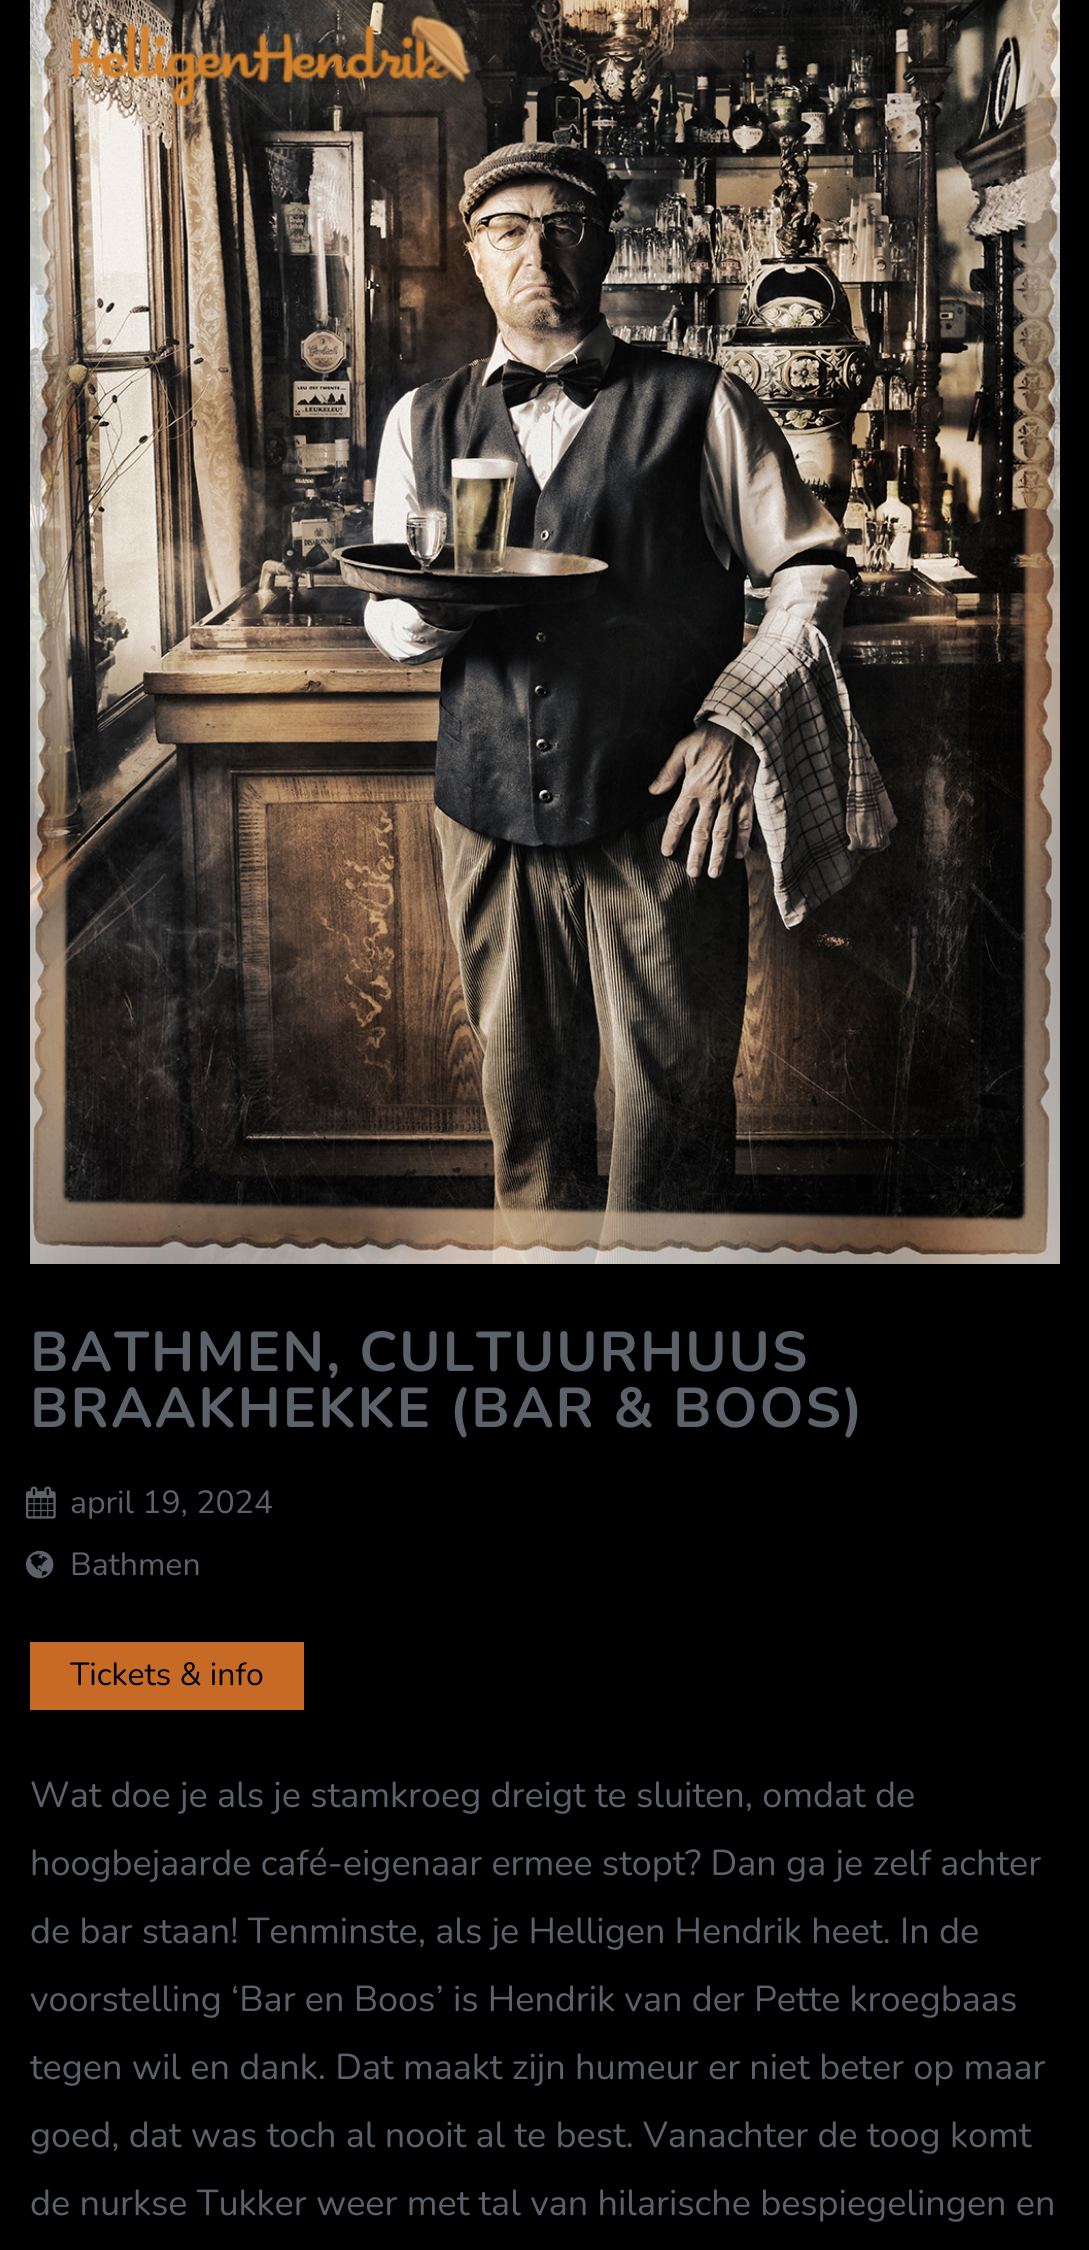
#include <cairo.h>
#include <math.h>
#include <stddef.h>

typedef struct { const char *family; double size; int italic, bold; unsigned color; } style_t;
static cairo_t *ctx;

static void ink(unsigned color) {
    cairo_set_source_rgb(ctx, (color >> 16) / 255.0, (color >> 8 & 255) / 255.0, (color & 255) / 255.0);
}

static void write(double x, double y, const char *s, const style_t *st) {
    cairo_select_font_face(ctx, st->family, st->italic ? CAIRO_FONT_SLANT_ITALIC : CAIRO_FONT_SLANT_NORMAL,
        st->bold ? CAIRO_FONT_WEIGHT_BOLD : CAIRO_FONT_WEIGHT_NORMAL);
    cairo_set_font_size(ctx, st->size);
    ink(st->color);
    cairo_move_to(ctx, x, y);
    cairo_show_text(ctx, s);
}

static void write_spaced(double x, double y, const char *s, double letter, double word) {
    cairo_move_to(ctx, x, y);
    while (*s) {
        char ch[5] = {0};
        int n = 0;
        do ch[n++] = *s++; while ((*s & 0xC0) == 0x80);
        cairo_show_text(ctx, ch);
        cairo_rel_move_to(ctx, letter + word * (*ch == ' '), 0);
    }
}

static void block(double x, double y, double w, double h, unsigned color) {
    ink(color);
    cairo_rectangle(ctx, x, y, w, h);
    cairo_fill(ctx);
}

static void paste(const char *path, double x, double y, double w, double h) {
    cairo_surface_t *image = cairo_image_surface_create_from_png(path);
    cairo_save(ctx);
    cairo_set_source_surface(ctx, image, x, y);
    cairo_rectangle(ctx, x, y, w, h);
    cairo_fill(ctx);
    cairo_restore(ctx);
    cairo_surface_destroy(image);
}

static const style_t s1 = {"Nunito", 32, 0, 0, 0x5b626a};
static const style_t s2 = {"Nunito", 32, 0, 0, 0x000000};
static const style_t s3 = {"Nunito", 36, 0, 0, 0x5b626a};

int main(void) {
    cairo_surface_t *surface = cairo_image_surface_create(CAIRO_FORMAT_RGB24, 1089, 2250);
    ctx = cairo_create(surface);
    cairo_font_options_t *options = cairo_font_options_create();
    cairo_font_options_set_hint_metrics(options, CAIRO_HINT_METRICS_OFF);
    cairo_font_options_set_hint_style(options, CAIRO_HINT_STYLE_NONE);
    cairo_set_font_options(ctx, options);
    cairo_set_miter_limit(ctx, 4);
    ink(0x000000);
    cairo_paint(ctx);
    paste("pic2.png", 30, 0, 1030, 1264);
    paste("pic1.png", 71, 15, 400, 92);
    cairo_select_font_face(ctx, "Nunito ExtraLight", CAIRO_FONT_SLANT_NORMAL, CAIRO_FONT_WEIGHT_NORMAL);
    cairo_set_font_size(ctx, 56);
    ink(0x5b626a);
    write_spaced(30, 1371, "BATHMEN, CULTUURHUUS", 2, 0);
    write_spaced(30, 1427, "BRAAKHEKKE (BAR & BOOS)", 2, 0);
    paste("pic3.png", 26, 1486, 30, 33);
    write(70, 1513, "april 19, 2024", &s1);
    paste("pic4.png", 26, 1550, 28, 29);
    write(70, 1575, "Bathmen", &s1);
    block(30, 1642, 274, 68, 0xc66a26);
    write(70, 1685, "Tickets & info", &s2);
    write(30, 1807, "Wat doe je als je stamkroeg dreigt te sluiten, omdat de", &s3);
    write(30, 1875, "hoogbejaarde café-eigenaar ermee stopt? Dan ga je zelf achter", &s3);
    write(30, 1943, "de bar staan! Tenminste, als je Helligen Hendrik heet. In de", &s3);
    write(30, 2011, "voorstelling ‘Bar en Boos’ is Hendrik van der Pette kroegbaas", &s3);
    write(30, 2079, "tegen wil en dank. Dat maakt zijn humeur er niet beter op maar", &s3);
    write(30, 2147, "goed, dat was toch al nooit al te best. Vanachter de toog komt", &s3);
    write(30, 2215, "de nurkse Tukker weer met tal van hilarische bespiegelingen en", &s3);
    cairo_surface_write_to_png(surface, "screenshot.png");
    cairo_font_options_destroy(options);
    cairo_destroy(ctx);
    cairo_surface_destroy(surface);
    return 0;
}
